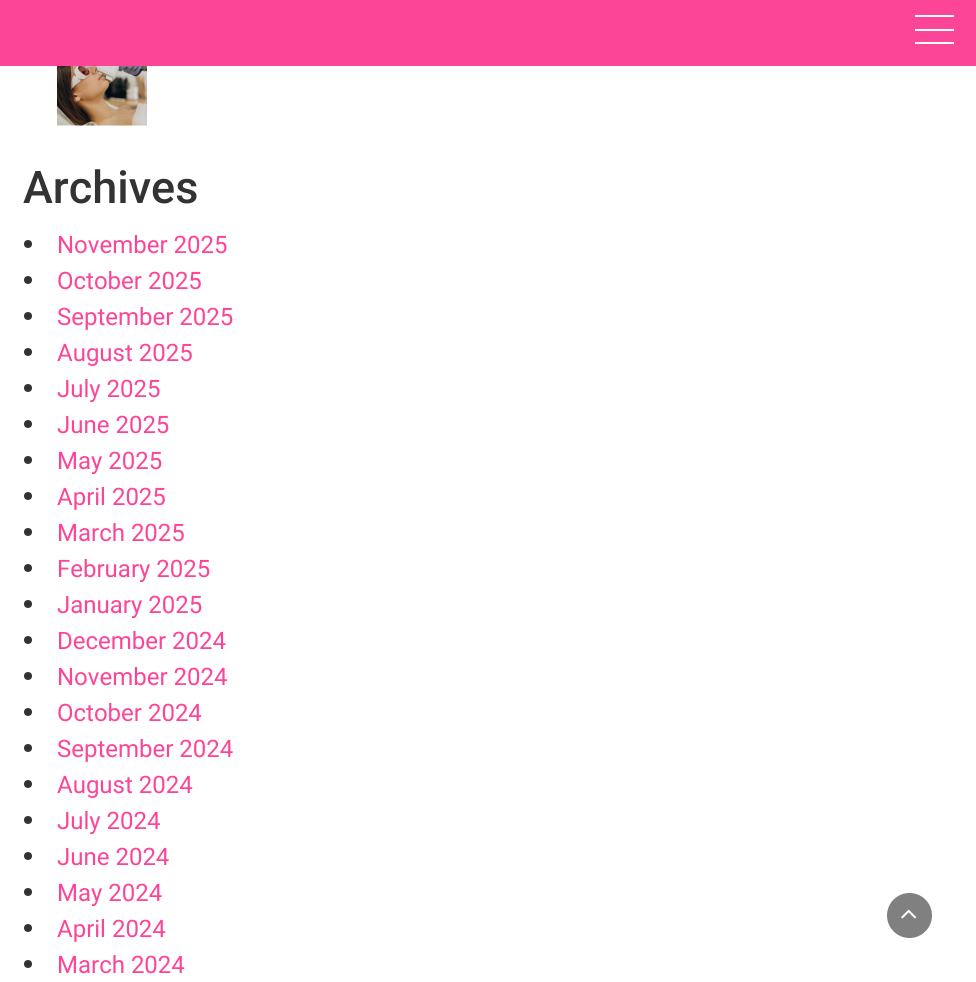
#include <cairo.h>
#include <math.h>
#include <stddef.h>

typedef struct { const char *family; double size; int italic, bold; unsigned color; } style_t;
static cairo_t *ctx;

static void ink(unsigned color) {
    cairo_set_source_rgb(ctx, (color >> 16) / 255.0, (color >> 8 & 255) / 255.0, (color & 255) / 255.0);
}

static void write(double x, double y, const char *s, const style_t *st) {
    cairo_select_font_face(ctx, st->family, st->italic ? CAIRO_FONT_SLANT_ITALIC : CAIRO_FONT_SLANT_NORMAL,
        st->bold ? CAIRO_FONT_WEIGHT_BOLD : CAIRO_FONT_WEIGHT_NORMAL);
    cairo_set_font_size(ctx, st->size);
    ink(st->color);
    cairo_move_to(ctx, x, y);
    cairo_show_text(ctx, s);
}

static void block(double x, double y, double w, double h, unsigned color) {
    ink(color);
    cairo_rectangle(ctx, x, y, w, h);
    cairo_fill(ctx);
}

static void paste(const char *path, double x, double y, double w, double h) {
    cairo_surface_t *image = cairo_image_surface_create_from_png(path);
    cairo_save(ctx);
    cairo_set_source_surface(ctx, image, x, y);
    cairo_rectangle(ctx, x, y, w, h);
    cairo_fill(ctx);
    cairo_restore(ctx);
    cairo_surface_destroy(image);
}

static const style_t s1 = {"Roboto Medium", 45, 0, 0, 0x333333};
static const style_t s2 = {"Roboto", 24, 0, 0, 0xfd4597};

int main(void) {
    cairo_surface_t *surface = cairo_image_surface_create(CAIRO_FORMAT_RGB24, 976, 982);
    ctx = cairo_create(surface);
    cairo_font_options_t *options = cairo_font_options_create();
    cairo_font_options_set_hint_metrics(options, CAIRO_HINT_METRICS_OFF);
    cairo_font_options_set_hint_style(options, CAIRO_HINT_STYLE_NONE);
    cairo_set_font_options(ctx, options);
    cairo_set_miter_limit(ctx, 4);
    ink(0xffffff);
    cairo_paint(ctx);
    block(0, 0, 976, 66, 0xfd4597);
    block(915, 15, 39, 2, 0xffffff);
    block(915, 29, 39, 2, 0xffffff);
    block(915, 42, 39, 2, 0xffffff);
    paste("pic1.png", 57, 66, 90, 60);
    write(23, 203, "Archives", &s1);
    cairo_new_path(ctx);
    cairo_arc(ctx, 28, 244, 4, 0, 2 * M_PI);
    cairo_fill(ctx);
    write(57, 253, "November 2025", &s2);
    ink(0x333333);
    cairo_new_path(ctx);
    cairo_arc(ctx, 28, 280, 4, 0, 2 * M_PI);
    cairo_fill(ctx);
    write(57, 289, "October 2025", &s2);
    ink(0x333333);
    cairo_new_path(ctx);
    cairo_arc(ctx, 28, 316, 4, 0, 2 * M_PI);
    cairo_fill(ctx);
    write(57, 325, "September 2025", &s2);
    ink(0x333333);
    cairo_new_path(ctx);
    cairo_arc(ctx, 28, 352, 4, 0, 2 * M_PI);
    cairo_fill(ctx);
    write(57, 361, "August 2025", &s2);
    ink(0x333333);
    cairo_new_path(ctx);
    cairo_arc(ctx, 28, 388, 4, 0, 2 * M_PI);
    cairo_fill(ctx);
    write(57, 397, "July 2025", &s2);
    ink(0x333333);
    cairo_new_path(ctx);
    cairo_arc(ctx, 28, 424, 4, 0, 2 * M_PI);
    cairo_fill(ctx);
    write(57, 433, "June 2025", &s2);
    ink(0x333333);
    cairo_new_path(ctx);
    cairo_arc(ctx, 28, 460, 4, 0, 2 * M_PI);
    cairo_fill(ctx);
    write(57, 469, "May 2025", &s2);
    ink(0x333333);
    cairo_new_path(ctx);
    cairo_arc(ctx, 28, 496, 4, 0, 2 * M_PI);
    cairo_fill(ctx);
    write(57, 505, "April 2025", &s2);
    ink(0x333333);
    cairo_new_path(ctx);
    cairo_arc(ctx, 28, 532, 4, 0, 2 * M_PI);
    cairo_fill(ctx);
    write(57, 541, "March 2025", &s2);
    ink(0x333333);
    cairo_new_path(ctx);
    cairo_arc(ctx, 28, 568, 4, 0, 2 * M_PI);
    cairo_fill(ctx);
    write(57, 577, "February 2025", &s2);
    ink(0x333333);
    cairo_new_path(ctx);
    cairo_arc(ctx, 28, 604, 4, 0, 2 * M_PI);
    cairo_fill(ctx);
    write(57, 613, "January 2025", &s2);
    ink(0x333333);
    cairo_new_path(ctx);
    cairo_arc(ctx, 28, 640, 4, 0, 2 * M_PI);
    cairo_fill(ctx);
    write(57, 649, "December 2024", &s2);
    ink(0x333333);
    cairo_new_path(ctx);
    cairo_arc(ctx, 28, 676, 4, 0, 2 * M_PI);
    cairo_fill(ctx);
    write(57, 685, "November 2024", &s2);
    ink(0x333333);
    cairo_new_path(ctx);
    cairo_arc(ctx, 28, 712, 4, 0, 2 * M_PI);
    cairo_fill(ctx);
    write(57, 721, "October 2024", &s2);
    ink(0x333333);
    cairo_new_path(ctx);
    cairo_arc(ctx, 28, 748, 4, 0, 2 * M_PI);
    cairo_fill(ctx);
    write(57, 757, "September 2024", &s2);
    ink(0x333333);
    cairo_new_path(ctx);
    cairo_arc(ctx, 28, 784, 4, 0, 2 * M_PI);
    cairo_fill(ctx);
    write(57, 793, "August 2024", &s2);
    ink(0x333333);
    cairo_new_path(ctx);
    cairo_arc(ctx, 28, 820, 4, 0, 2 * M_PI);
    cairo_fill(ctx);
    write(57, 829, "July 2024", &s2);
    ink(0x333333);
    cairo_new_path(ctx);
    cairo_arc(ctx, 28, 856, 4, 0, 2 * M_PI);
    cairo_fill(ctx);
    write(57, 865, "June 2024", &s2);
    ink(0x333333);
    cairo_new_path(ctx);
    cairo_arc(ctx, 28, 892, 4, 0, 2 * M_PI);
    cairo_fill(ctx);
    write(57, 901, "May 2024", &s2);
    ink(0x333333);
    cairo_new_path(ctx);
    cairo_arc(ctx, 28, 928, 4, 0, 2 * M_PI);
    cairo_fill(ctx);
    write(57, 937, "April 2024", &s2);
    ink(0x333333);
    cairo_new_path(ctx);
    cairo_arc(ctx, 28, 964, 4, 0, 2 * M_PI);
    cairo_fill(ctx);
    write(57, 973, "March 2024", &s2);
    ink(0x808080);
    cairo_new_path(ctx);
    cairo_arc(ctx, 909.5, 915.5, 22.5, 0, 2 * M_PI);
    cairo_fill(ctx);
    paste("pic2.png", 901, 909, 16, 10);
    cairo_surface_write_to_png(surface, "screenshot.png");
    cairo_font_options_destroy(options);
    cairo_destroy(ctx);
    cairo_surface_destroy(surface);
    return 0;
}
